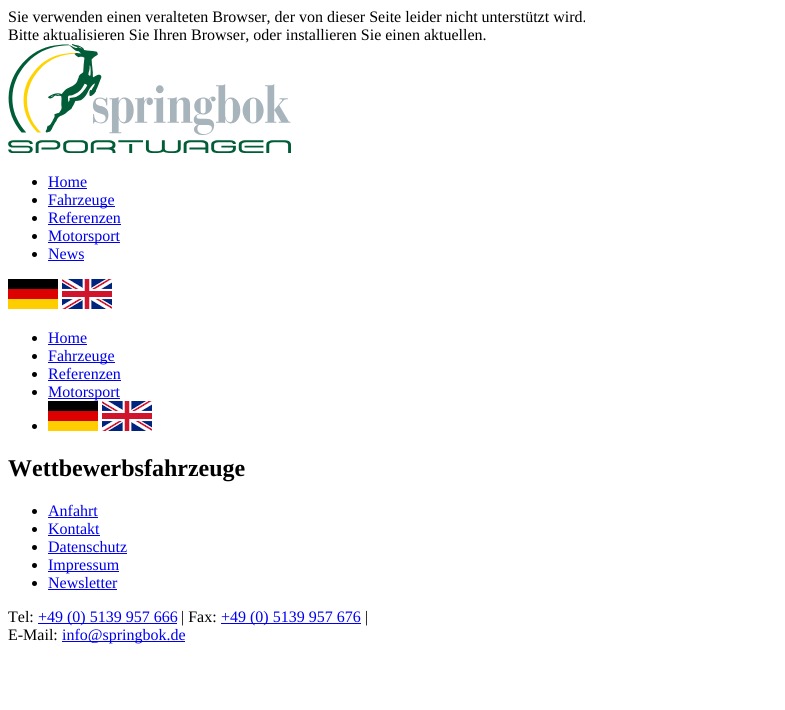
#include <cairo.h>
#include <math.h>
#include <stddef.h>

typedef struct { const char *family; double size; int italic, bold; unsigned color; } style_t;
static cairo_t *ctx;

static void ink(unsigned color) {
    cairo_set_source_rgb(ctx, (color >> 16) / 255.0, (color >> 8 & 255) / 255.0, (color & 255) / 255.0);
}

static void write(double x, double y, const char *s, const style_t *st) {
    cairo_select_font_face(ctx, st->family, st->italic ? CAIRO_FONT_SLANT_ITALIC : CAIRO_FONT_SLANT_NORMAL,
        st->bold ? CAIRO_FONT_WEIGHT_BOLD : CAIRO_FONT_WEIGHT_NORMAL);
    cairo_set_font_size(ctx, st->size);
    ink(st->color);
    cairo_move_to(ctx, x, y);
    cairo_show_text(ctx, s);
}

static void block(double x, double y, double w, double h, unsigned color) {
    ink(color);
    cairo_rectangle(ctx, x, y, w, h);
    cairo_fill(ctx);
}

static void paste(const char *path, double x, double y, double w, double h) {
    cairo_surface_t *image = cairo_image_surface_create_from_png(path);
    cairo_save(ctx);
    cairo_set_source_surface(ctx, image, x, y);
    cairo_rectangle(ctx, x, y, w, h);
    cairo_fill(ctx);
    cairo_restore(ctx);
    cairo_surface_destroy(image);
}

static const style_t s1 = {"Liberation Serif", 16, 0, 0, 0x000000};
static const style_t s2 = {"Liberation Serif", 16, 0, 0, 0x0000ee};
static const style_t s3 = {"Liberation Serif", 24, 0, 1, 0x000000};

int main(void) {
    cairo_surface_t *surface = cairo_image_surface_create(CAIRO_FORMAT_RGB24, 785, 710);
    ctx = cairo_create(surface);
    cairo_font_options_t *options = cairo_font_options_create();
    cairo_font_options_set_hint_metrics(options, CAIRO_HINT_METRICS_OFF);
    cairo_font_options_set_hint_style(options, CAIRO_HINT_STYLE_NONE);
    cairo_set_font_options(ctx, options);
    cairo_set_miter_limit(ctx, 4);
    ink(0xffffff);
    cairo_paint(ctx);
    write(8, 22, "Sie verwenden einen veralteten Browser, der von dieser Seite leider nicht unterstützt wird.", &s1);
    write(8, 40, "Bitte aktualisieren Sie Ihren Browser, oder installieren Sie einen aktuellen.", &s1);
    paste("pic1.png", 8, 44, 283, 109);
    cairo_arc(ctx, 34.5, 182.5, 2.5, 0, 2 * M_PI);
    cairo_fill(ctx);
    write(48, 187, "Home", &s2);
    block(48, 188, 39, 1, 0x0000ee);
    ink(0x000000);
    cairo_new_path(ctx);
    cairo_arc(ctx, 34.5, 200.5, 2.5, 0, 2 * M_PI);
    cairo_fill(ctx);
    block(48, 206, 67, 1, 0x0000ee);
    write(48, 205, "Fahrzeuge", &s2);
    ink(0x000000);
    cairo_new_path(ctx);
    cairo_arc(ctx, 34.5, 218.5, 2.5, 0, 2 * M_PI);
    cairo_fill(ctx);
    write(48, 223, "Referenzen", &s2);
    block(48, 224, 73, 1, 0x0000ee);
    ink(0x000000);
    cairo_new_path(ctx);
    cairo_arc(ctx, 34.5, 236.5, 2.5, 0, 2 * M_PI);
    cairo_fill(ctx);
    block(48, 242, 72, 1, 0x0000ee);
    write(48, 241, "Motorsport", &s2);
    ink(0x000000);
    cairo_new_path(ctx);
    cairo_arc(ctx, 34.5, 254.5, 2.5, 0, 2 * M_PI);
    cairo_fill(ctx);
    write(48, 259, "News", &s2);
    block(48, 260, 36, 1, 0x0000ee);
    paste("pic2.png", 8, 279, 50, 30);
    paste("pic3.png", 62, 279, 50, 30);
    ink(0x000000);
    cairo_arc(ctx, 34.5, 338.5, 2.5, 0, 2 * M_PI);
    cairo_fill(ctx);
    write(48, 343, "Home", &s2);
    block(48, 344, 39, 1, 0x0000ee);
    ink(0x000000);
    cairo_new_path(ctx);
    cairo_arc(ctx, 34.5, 356.5, 2.5, 0, 2 * M_PI);
    cairo_fill(ctx);
    block(48, 362, 67, 1, 0x0000ee);
    write(48, 361, "Fahrzeuge", &s2);
    ink(0x000000);
    cairo_new_path(ctx);
    cairo_arc(ctx, 34.5, 374.5, 2.5, 0, 2 * M_PI);
    cairo_fill(ctx);
    write(48, 379, "Referenzen", &s2);
    block(48, 380, 73, 1, 0x0000ee);
    ink(0x000000);
    cairo_new_path(ctx);
    cairo_arc(ctx, 34.5, 392.5, 2.5, 0, 2 * M_PI);
    cairo_fill(ctx);
    block(48, 398, 72, 1, 0x0000ee);
    write(48, 397, "Motorsport", &s2);
    ink(0x000000);
    cairo_new_path(ctx);
    cairo_arc(ctx, 34.5, 426.5, 2.5, 0, 2 * M_PI);
    cairo_fill(ctx);
    paste("pic2.png", 48, 401, 50, 30);
    paste("pic3.png", 102, 401, 50, 30);
    write(8, 476, "Wettbewerbsfahrzeuge", &s3);
    cairo_new_path(ctx);
    cairo_arc(ctx, 34.5, 511.5, 2.5, 0, 2 * M_PI);
    cairo_fill(ctx);
    write(48, 516, "Anfahrt", &s2);
    block(48, 517, 50, 1, 0x0000ee);
    ink(0x000000);
    cairo_new_path(ctx);
    cairo_arc(ctx, 34.5, 529.5, 2.5, 0, 2 * M_PI);
    cairo_fill(ctx);
    write(48, 534, "Kontakt", &s2);
    block(48, 535, 52, 1, 0x0000ee);
    ink(0x000000);
    cairo_new_path(ctx);
    cairo_arc(ctx, 34.5, 547.5, 2.5, 0, 2 * M_PI);
    cairo_fill(ctx);
    write(48, 552, "Datenschutz", &s2);
    block(48, 553, 79, 1, 0x0000ee);
    ink(0x000000);
    cairo_new_path(ctx);
    cairo_arc(ctx, 34.5, 565.5, 2.5, 0, 2 * M_PI);
    cairo_fill(ctx);
    block(48, 571, 71, 1, 0x0000ee);
    write(48, 570, "Impressum", &s2);
    ink(0x000000);
    cairo_new_path(ctx);
    cairo_arc(ctx, 34.5, 583.5, 2.5, 0, 2 * M_PI);
    cairo_fill(ctx);
    write(48, 588, "Newsletter", &s2);
    block(48, 589, 69, 1, 0x0000ee);
    write(8, 622, "Tel:", &s1);
    block(38, 623, 139, 1, 0x0000ee);
    write(38, 622, "+49 (0) 5139 957 666", &s2);
    write(181, 622, "| Fax:", &s1);
    block(221, 623, 140, 1, 0x0000ee);
    write(221, 622, "+49 (0) 5139 957 676", &s2);
    write(365, 622, "|", &s1);
    write(8, 640, "E-Mail:", &s1);
    block(62, 641, 123, 1, 0x0000ee);
    write(62, 640, "info@springbok.de", &s2);
    cairo_surface_write_to_png(surface, "screenshot.png");
    cairo_font_options_destroy(options);
    cairo_destroy(ctx);
    cairo_surface_destroy(surface);
    return 0;
}
